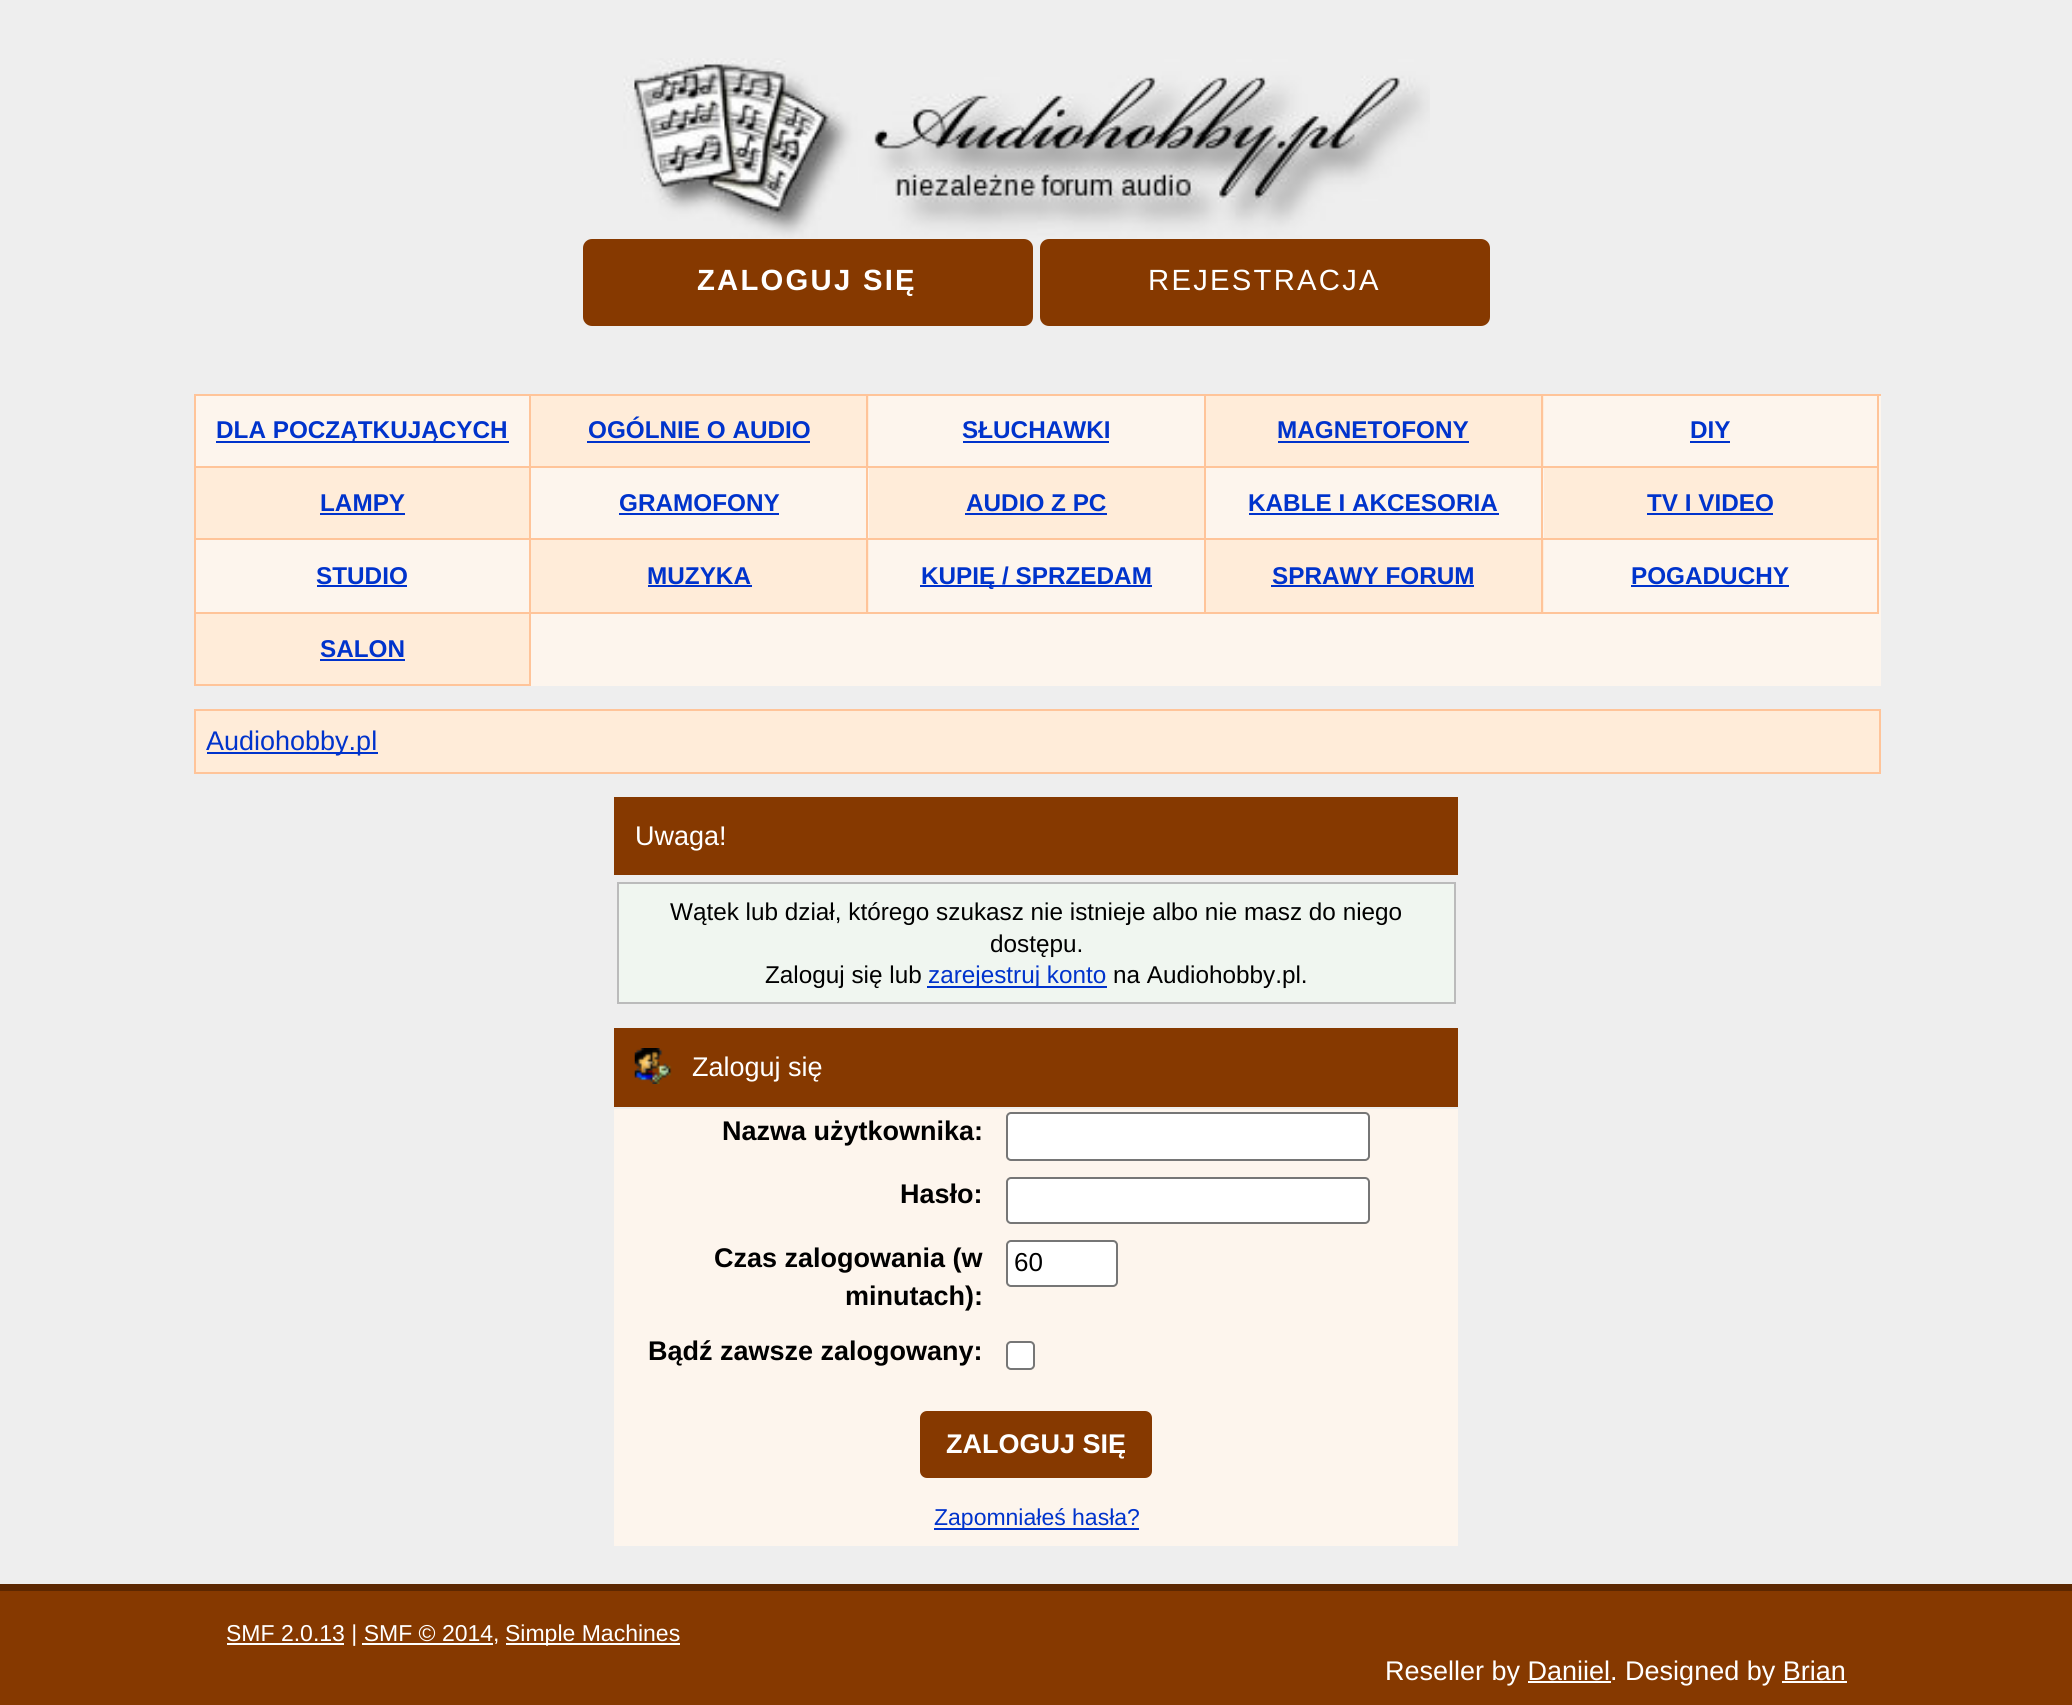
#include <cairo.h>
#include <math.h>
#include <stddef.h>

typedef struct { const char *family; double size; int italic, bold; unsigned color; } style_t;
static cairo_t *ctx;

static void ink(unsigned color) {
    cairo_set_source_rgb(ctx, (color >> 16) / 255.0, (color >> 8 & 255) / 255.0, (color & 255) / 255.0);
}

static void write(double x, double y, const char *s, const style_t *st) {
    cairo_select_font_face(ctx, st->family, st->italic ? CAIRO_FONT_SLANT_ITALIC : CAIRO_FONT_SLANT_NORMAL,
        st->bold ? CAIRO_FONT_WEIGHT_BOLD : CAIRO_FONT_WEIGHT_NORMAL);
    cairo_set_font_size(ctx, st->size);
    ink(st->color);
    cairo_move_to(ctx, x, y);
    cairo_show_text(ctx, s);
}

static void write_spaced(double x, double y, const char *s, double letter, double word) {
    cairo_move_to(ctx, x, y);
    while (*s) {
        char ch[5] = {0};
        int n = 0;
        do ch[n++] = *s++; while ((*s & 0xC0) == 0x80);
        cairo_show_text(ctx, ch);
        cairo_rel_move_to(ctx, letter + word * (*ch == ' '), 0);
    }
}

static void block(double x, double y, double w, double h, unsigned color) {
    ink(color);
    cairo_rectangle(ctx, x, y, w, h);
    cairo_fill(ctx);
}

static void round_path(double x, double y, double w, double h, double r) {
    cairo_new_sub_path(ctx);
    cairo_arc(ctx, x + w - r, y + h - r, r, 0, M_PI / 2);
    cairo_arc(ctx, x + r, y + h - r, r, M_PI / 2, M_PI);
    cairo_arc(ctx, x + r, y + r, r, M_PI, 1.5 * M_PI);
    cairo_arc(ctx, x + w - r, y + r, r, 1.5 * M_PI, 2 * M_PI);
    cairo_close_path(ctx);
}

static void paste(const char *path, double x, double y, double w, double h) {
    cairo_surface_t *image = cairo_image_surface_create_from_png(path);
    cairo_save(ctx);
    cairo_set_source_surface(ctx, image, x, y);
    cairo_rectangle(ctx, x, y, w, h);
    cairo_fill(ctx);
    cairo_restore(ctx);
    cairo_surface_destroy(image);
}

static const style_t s1 = {"Liberation Sans", 24.3, 0, 1, 0x0033cc};
static const style_t s2 = {"Liberation Sans", 27, 0, 0, 0x0033cc};
static const style_t s3 = {"Liberation Sans", 27, 0, 0, 0xffffff};
static const style_t s4 = {"Liberation Sans", 24.3, 0, 0, 0x000000};
static const style_t s5 = {"Liberation Sans", 24.3, 0, 0, 0x0033cc};
static const style_t s6 = {"Liberation Sans", 27, 0, 1, 0x000000};
static const style_t s7 = {"Liberation Sans", 26, 0, 0, 0x000000};
static const style_t s8 = {"Liberation Sans", 27, 0, 1, 0xffffff};
static const style_t s9 = {"Liberation Sans", 23, 0, 0, 0x0033cc};
static const style_t s10 = {"Liberation Sans", 23, 0, 0, 0xffffff};

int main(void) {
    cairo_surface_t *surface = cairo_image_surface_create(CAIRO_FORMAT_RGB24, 2072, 1705);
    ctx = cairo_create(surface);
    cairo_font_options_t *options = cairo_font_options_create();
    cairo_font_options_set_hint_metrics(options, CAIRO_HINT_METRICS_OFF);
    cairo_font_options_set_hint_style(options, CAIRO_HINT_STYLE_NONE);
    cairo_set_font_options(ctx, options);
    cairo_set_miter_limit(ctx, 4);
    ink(0xeeeeee);
    cairo_paint(ctx);
    paste("pic1.png", 623, 58, 807, 180);
    ink(0x863900);
    round_path(583, 239, 450, 87, 9);
    cairo_fill(ctx);
    cairo_select_font_face(ctx, "Liberation Sans", CAIRO_FONT_SLANT_NORMAL, CAIRO_FONT_WEIGHT_BOLD);
    cairo_set_font_size(ctx, 29.25);
    ink(0xffffff);
    write_spaced(697, 290, "ZALOGUJ SIĘ", 2.25, 0);
    ink(0x863900);
    round_path(1040, 239, 450, 87, 9);
    cairo_fill(ctx);
    cairo_select_font_face(ctx, "Liberation Sans", CAIRO_FONT_SLANT_NORMAL, CAIRO_FONT_WEIGHT_NORMAL);
    ink(0xffffff);
    write_spaced(1148, 290, "REJESTRACJA", 2.25, 0);
    block(196, 396, 1685, 290, 0xfdf5ed);
    block(194, 394, 1687, 2, 0xffc499);
    block(194, 394, 2, 292, 0xffc499);
    block(529, 396, 2, 290, 0xffc499);
    block(196, 466, 335, 2, 0xffc499);
    block(216, 441, 293, 2, 0x0033cc);
    write(216, 438, "DLA POCZĄTKUJĄCYCH", &s1);
    block(531, 396, 338, 70, 0xffecd9);
    block(866, 396, 2, 144, 0xffc499);
    block(531, 466, 338, 2, 0xffc499);
    write(588, 438, "OGÓLNIE O AUDIO", &s1);
    block(587, 441, 223, 2, 0x0033cc);
    block(1204, 396, 2, 218, 0xffc499);
    block(869, 466, 337, 2, 0xffc499);
    write(962, 438, "SŁUCHAWKI", &s1);
    block(963, 441, 146, 2, 0x0033cc);
    block(1206, 396, 338, 70, 0xffecd9);
    block(1541, 396, 2, 144, 0xffc499);
    block(1206, 466, 338, 2, 0xffc499);
    write(1277, 438, "MAGNETOFONY", &s1);
    block(1278, 441, 191, 2, 0x0033cc);
    block(1877, 396, 2, 218, 0xffc499);
    block(1544, 466, 335, 2, 0xffc499);
    write(1690, 438, "DIY", &s1);
    block(1690, 441, 40, 2, 0x0033cc);
    block(196, 468, 333, 70, 0xffecd9);
    block(196, 538, 1683, 2, 0xffc499);
    write(320, 511, "LAMPY", &s1);
    block(320, 513, 85, 2, 0x0033cc);
    write(619, 511, "GRAMOFONY", &s1);
    block(619, 513, 160, 2, 0x0033cc);
    block(869, 468, 335, 70, 0xffecd9);
    write(966, 511, "AUDIO Z PC", &s1);
    block(965, 513, 142, 2, 0x0033cc);
    write(1248, 511, "KABLE I AKCESORIA", &s1);
    block(1249, 513, 250, 2, 0x0033cc);
    block(1544, 468, 333, 70, 0xffecd9);
    write(1647, 511, "TV I VIDEO", &s1);
    block(1647, 513, 126, 2, 0x0033cc);
    block(196, 612, 335, 2, 0xffc499);
    write(316, 584, "STUDIO", &s1);
    block(317, 585, 90, 2, 0x0033cc);
    block(531, 540, 338, 72, 0xffecd9);
    block(866, 540, 2, 74, 0xffc499);
    block(531, 612, 675, 2, 0xffc499);
    write(647, 584, "MUZYKA", &s1);
    block(648, 585, 104, 2, 0x0033cc);
    block(920, 585, 232, 2, 0x0033cc);
    write(921, 584, "KUPIĘ / SPRZEDAM", &s1);
    block(1206, 540, 338, 72, 0xffecd9);
    block(1541, 540, 2, 74, 0xffc499);
    block(1206, 612, 673, 2, 0xffc499);
    write(1272, 584, "SPRAWY FORUM", &s1);
    block(1271, 585, 203, 2, 0x0033cc);
    write(1631, 584, "POGADUCHY", &s1);
    block(1631, 585, 158, 2, 0x0033cc);
    block(196, 614, 333, 70, 0xffecd9);
    block(196, 684, 335, 2, 0xffc499);
    write(320, 657, "SALON", &s1);
    block(320, 659, 85, 2, 0x0033cc);
    ink(0xffecd9);
    cairo_rectangle(ctx, 195, 710, 1685, 63);
    cairo_fill_preserve(ctx);
    ink(0xffc499);
    cairo_stroke(ctx);
    block(207, 752, 171, 2, 0x0033cc);
    write(206, 750, "Audiohobby.pl", &s2);
    block(614, 797, 844, 78, 0x863900);
    write(635, 845, "Uwaga!", &s3);
    ink(0xf0f6f0);
    cairo_rectangle(ctx, 618, 883, 837, 120);
    cairo_fill_preserve(ctx);
    ink(0xbbbbbb);
    cairo_stroke(ctx);
    write(670, 920, "Wątek lub dział, którego szukasz nie istnieje albo nie masz do niego", &s4);
    write(990, 952, "dostępu.", &s4);
    write(765, 983, "Zaloguj się lub", &s4);
    block(927, 986, 180, 2, 0x0033cc);
    write(928, 983, "zarejestruj konto", &s5);
    write(1113, 983, "na Audiohobby.pl.", &s4);
    block(614, 1028, 844, 79, 0x863900);
    paste("pic2.png", 634, 1048, 38, 36);
    write(692, 1076, "Zaloguj się", &s3);
    block(614, 1109, 844, 437, 0xfdf5ed);
    write(722, 1140, "Nazwa użytkownika:", &s6);
    ink(0xffffff);
    round_path(1007, 1113, 362, 47, 4);
    cairo_fill_preserve(ctx);
    ink(0x767676);
    cairo_stroke(ctx);
    write(900, 1203, "Hasło:", &s6);
    ink(0xffffff);
    round_path(1007, 1178, 362, 45, 4);
    cairo_fill_preserve(ctx);
    ink(0x767676);
    cairo_stroke(ctx);
    write(714, 1267, "Czas zalogowania (w", &s6);
    write(845, 1305, "minutach):", &s6);
    ink(0xffffff);
    round_path(1007, 1241, 110, 45, 4);
    cairo_fill_preserve(ctx);
    ink(0x767676);
    cairo_stroke(ctx);
    write(1014, 1271, "60", &s7);
    write(648, 1360, "Bądź zawsze zalogowany:", &s6);
    ink(0xffffff);
    round_path(1007, 1342, 27, 27, 4);
    cairo_fill_preserve(ctx);
    ink(0x767676);
    cairo_stroke(ctx);
    ink(0x863900);
    round_path(921, 1412, 230, 65, 6);
    cairo_fill_preserve(ctx);
    cairo_stroke(ctx);
    write(946, 1453, "ZALOGUJ SIĘ", &s8);
    block(934, 1528, 205, 2, 0x0033cc);
    write(934, 1525, "Zapomniałeś hasła?", &s9);
    block(0, 1584, 2072, 7, 0x5c2701);
    block(0, 1591, 2072, 114, 0x863900);
    block(227, 1643, 117, 2, 0xffffff);
    write(226, 1641, "SMF 2.0.13 | SMF © 2014,", &s10);
    block(362, 1643, 131, 2, 0xffffff);
    block(506, 1643, 174, 2, 0xffffff);
    write(505, 1641, "Simple Machines", &s10);
    write(1385, 1680, "Reseller by Daniiel. Designed by Brian", &s3);
    block(1528, 1681, 83, 2, 0xffffff);
    block(1782, 1681, 65, 2, 0xffffff);
    cairo_surface_write_to_png(surface, "screenshot.png");
    cairo_font_options_destroy(options);
    cairo_destroy(ctx);
    cairo_surface_destroy(surface);
    return 0;
}
